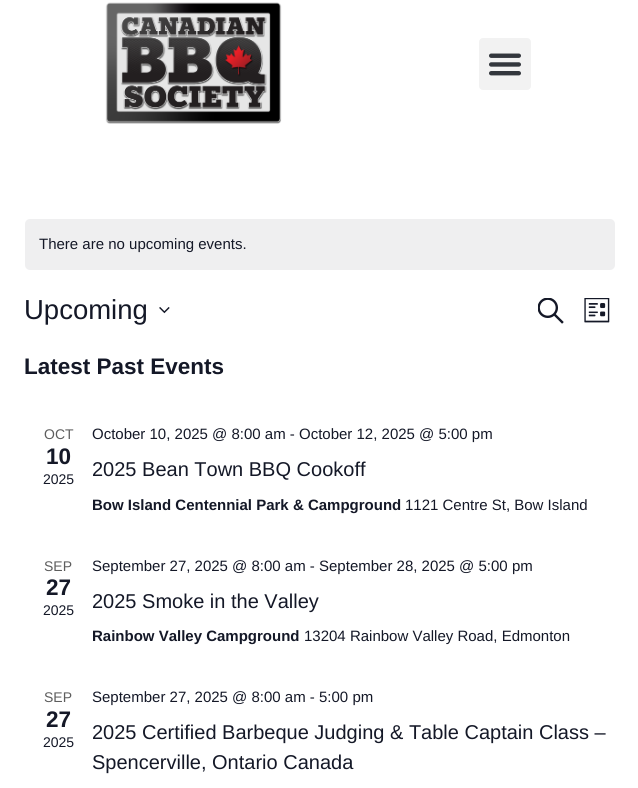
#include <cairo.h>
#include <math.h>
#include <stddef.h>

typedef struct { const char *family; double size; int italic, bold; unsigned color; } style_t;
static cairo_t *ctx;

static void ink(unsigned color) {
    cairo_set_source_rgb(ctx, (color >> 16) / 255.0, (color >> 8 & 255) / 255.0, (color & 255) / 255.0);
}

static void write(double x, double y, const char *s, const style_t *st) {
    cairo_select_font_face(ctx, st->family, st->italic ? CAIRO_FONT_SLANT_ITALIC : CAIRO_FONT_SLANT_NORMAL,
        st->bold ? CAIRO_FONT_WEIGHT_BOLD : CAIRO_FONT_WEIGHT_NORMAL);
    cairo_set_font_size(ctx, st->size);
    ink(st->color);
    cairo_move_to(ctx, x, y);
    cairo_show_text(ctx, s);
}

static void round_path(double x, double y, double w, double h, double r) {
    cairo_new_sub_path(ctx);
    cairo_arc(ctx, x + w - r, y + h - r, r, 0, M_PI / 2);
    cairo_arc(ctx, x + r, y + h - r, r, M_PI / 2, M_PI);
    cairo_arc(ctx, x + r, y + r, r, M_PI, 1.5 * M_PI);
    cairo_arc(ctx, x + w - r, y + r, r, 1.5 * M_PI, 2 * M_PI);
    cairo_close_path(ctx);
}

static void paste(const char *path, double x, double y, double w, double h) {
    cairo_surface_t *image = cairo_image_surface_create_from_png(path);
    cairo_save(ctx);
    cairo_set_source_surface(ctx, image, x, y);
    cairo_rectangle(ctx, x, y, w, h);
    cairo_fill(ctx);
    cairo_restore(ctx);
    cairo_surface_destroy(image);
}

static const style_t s1 = {"Liberation Sans", 15, 0, 0, 0x141827};
static const style_t s2 = {"Liberation Sans", 27.5, 0, 0, 0x141827};
static const style_t s3 = {"Liberation Sans", 22.5, 0, 1, 0x141827};
static const style_t s4 = {"Liberation Sans", 14, 0, 0, 0x5d5d5d};
static const style_t s5 = {"Liberation Sans", 14, 0, 0, 0x141827};
static const style_t s6 = {"Liberation Sans", 20, 0, 0, 0x141827};
static const style_t s7 = {"Liberation Sans", 15, 0, 1, 0x141827};

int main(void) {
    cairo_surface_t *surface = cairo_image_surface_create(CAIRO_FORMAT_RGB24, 638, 788);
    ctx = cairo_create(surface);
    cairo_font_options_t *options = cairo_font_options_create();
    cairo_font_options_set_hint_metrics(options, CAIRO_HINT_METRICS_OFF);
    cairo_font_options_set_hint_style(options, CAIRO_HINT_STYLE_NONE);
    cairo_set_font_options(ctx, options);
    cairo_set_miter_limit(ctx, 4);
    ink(0xffffff);
    cairo_paint(ctx);
    paste("pic1.png", 105, 2, 177, 122);
    ink(0xf2f2f2);
    round_path(479, 38, 52, 52, 4);
    cairo_fill(ctx);
    paste("pic2.png", 489, 53, 32, 23);
    ink(0xefeff0);
    round_path(25, 219, 590, 51, 5);
    cairo_fill(ctx);
    write(39, 249, "There are no upcoming events.", &s1);
    write(24, 319, "Upcoming", &s2);
    paste("pic3.png", 159, 307, 11, 7);
    paste("pic4.png", 538, 298, 26, 26);
    paste("pic5.png", 584, 298, 26, 25);
    write(24, 374, "Latest Past Events", &s3);
    write(44, 439, "OCT", &s4);
    write(46, 464, "10", &s3);
    write(43, 484, "2025", &s5);
    write(92, 439, "October 10, 2025 @ 8:00 am - October 12, 2025 @ 5:00 pm", &s1);
    write(92, 476, "2025 Bean Town BBQ Cookoff", &s6);
    write(92, 510, "Bow Island Centennial Park & Campground", &s7);
    write(405, 510, "1121 Centre St, Bow Island", &s1);
    write(44, 571, "SEP", &s4);
    write(46, 595, "27", &s3);
    write(43, 615, "2025", &s5);
    write(92, 571, "September 27, 2025 @ 8:00 am - September 28, 2025 @ 5:00 pm", &s1);
    write(92, 608, "2025 Smoke in the Valley", &s6);
    write(92, 641, "Rainbow Valley Campground", &s7);
    write(304, 641, "13204 Rainbow Valley Road, Edmonton", &s1);
    write(44, 702, "SEP", &s4);
    write(46, 727, "27", &s3);
    write(43, 747, "2025", &s5);
    write(92, 702, "September 27, 2025 @ 8:00 am - 5:00 pm", &s1);
    write(92, 739, "2025 Certified Barbeque Judging & Table Captain Class –", &s6);
    write(92, 769, "Spencerville, Ontario Canada", &s6);
    cairo_surface_write_to_png(surface, "screenshot.png");
    cairo_font_options_destroy(options);
    cairo_destroy(ctx);
    cairo_surface_destroy(surface);
    return 0;
}
